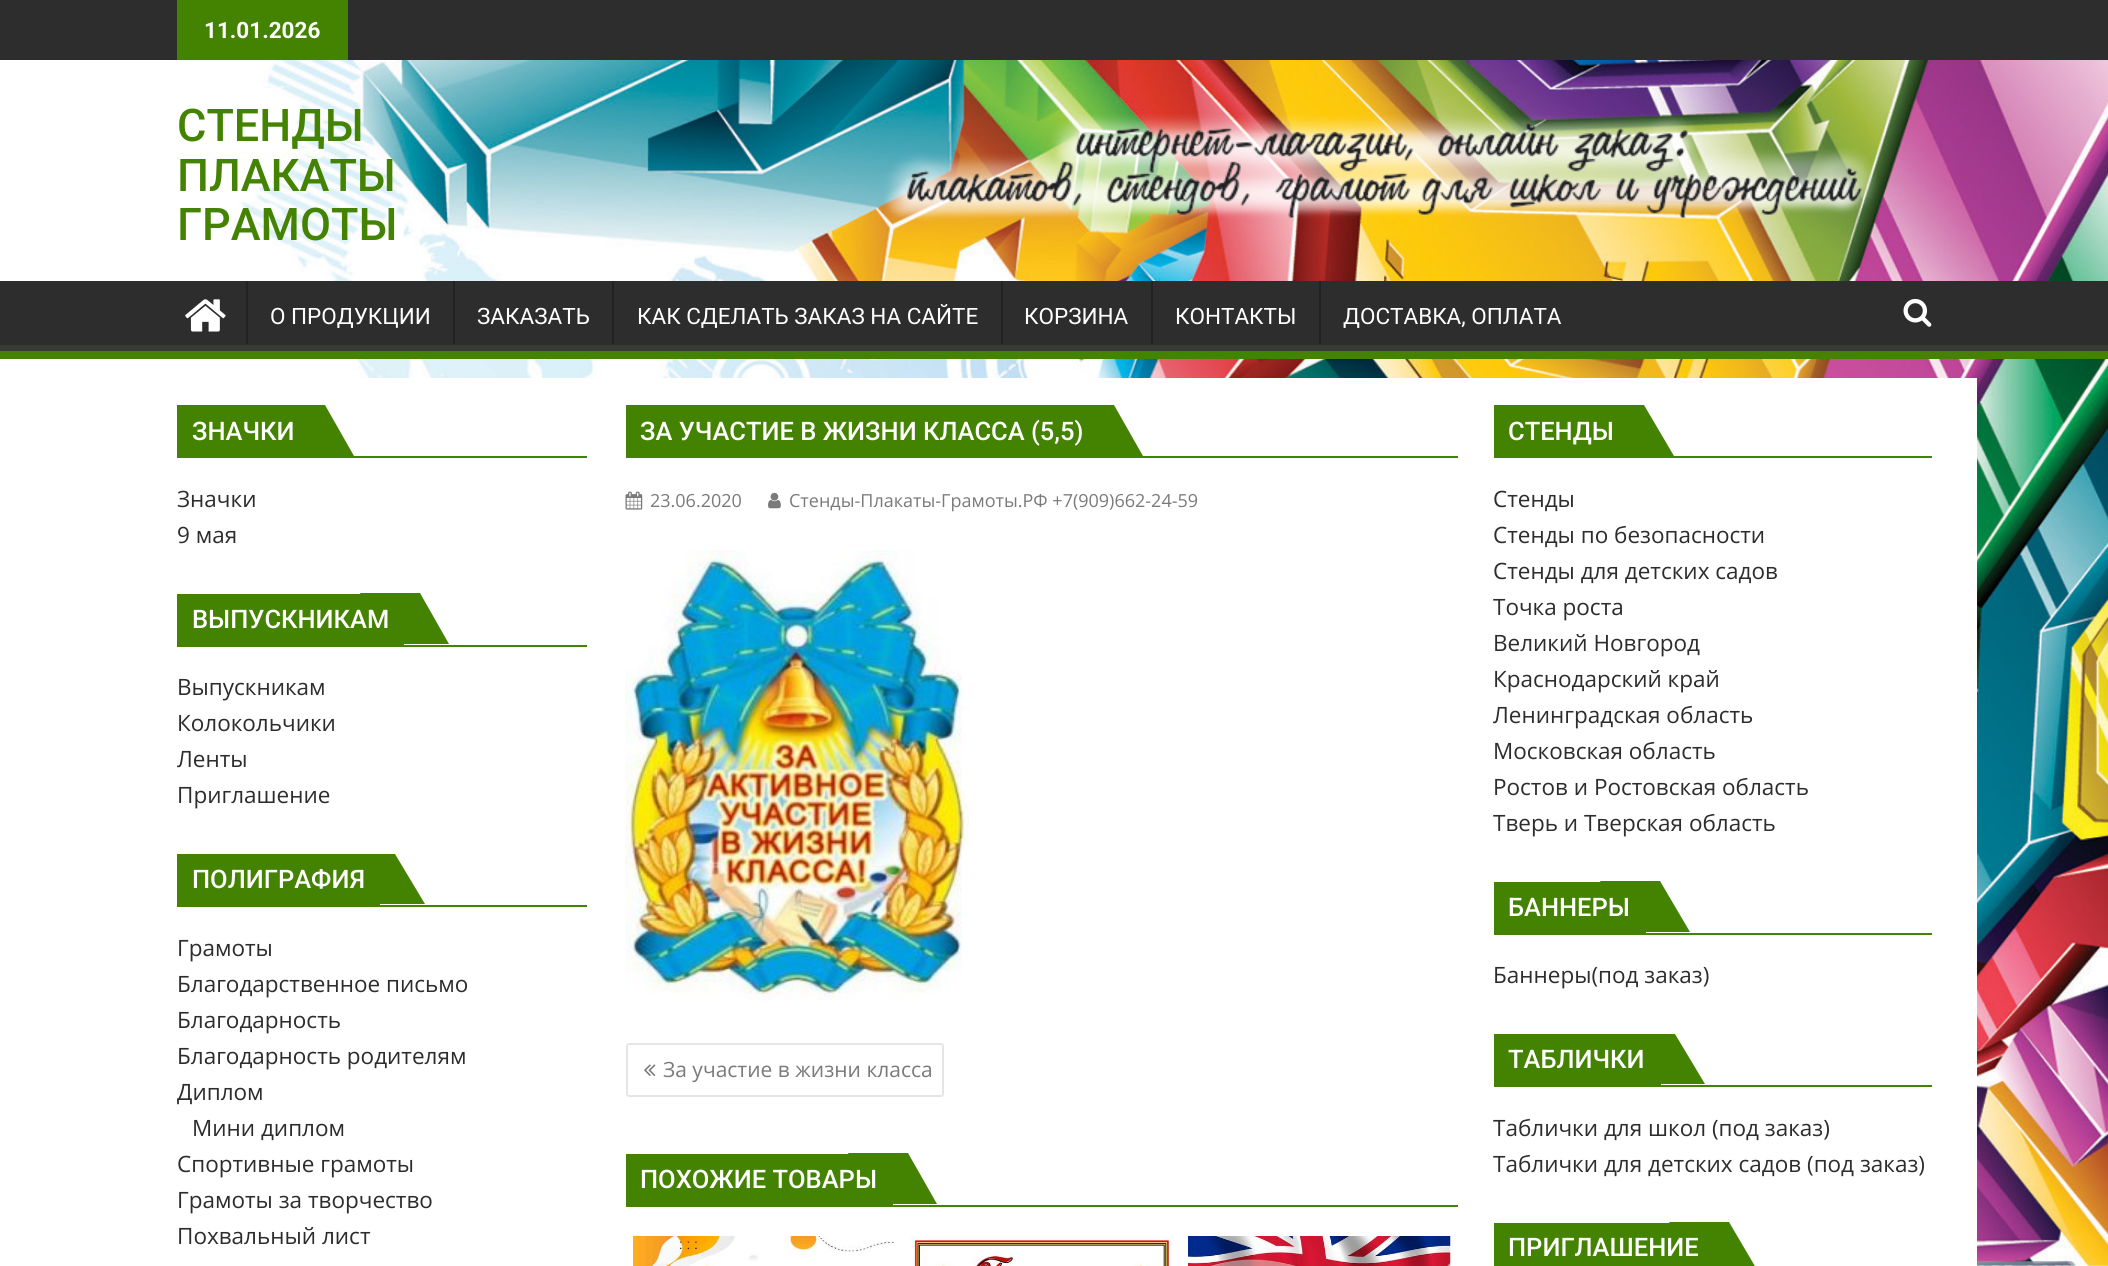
#include <cairo.h>
#include <math.h>
#include <stddef.h>

typedef struct { const char *family; double size; int italic, bold; unsigned color; } style_t;
static cairo_t *ctx;

static void ink(unsigned color) {
    cairo_set_source_rgb(ctx, (color >> 16) / 255.0, (color >> 8 & 255) / 255.0, (color & 255) / 255.0);
}

static void write(double x, double y, const char *s, const style_t *st) {
    cairo_select_font_face(ctx, st->family, st->italic ? CAIRO_FONT_SLANT_ITALIC : CAIRO_FONT_SLANT_NORMAL,
        st->bold ? CAIRO_FONT_WEIGHT_BOLD : CAIRO_FONT_WEIGHT_NORMAL);
    cairo_set_font_size(ctx, st->size);
    ink(st->color);
    cairo_move_to(ctx, x, y);
    cairo_show_text(ctx, s);
}

static void block(double x, double y, double w, double h, unsigned color) {
    ink(color);
    cairo_rectangle(ctx, x, y, w, h);
    cairo_fill(ctx);
}

static void round_path(double x, double y, double w, double h, double r) {
    cairo_new_sub_path(ctx);
    cairo_arc(ctx, x + w - r, y + h - r, r, 0, M_PI / 2);
    cairo_arc(ctx, x + r, y + h - r, r, M_PI / 2, M_PI);
    cairo_arc(ctx, x + r, y + r, r, M_PI, 1.5 * M_PI);
    cairo_arc(ctx, x + w - r, y + r, r, 1.5 * M_PI, 2 * M_PI);
    cairo_close_path(ctx);
}

static void paste(const char *path, double x, double y, double w, double h) {
    cairo_surface_t *image = cairo_image_surface_create_from_png(path);
    cairo_save(ctx);
    cairo_set_source_surface(ctx, image, x, y);
    cairo_rectangle(ctx, x, y, w, h);
    cairo_fill(ctx);
    cairo_restore(ctx);
    cairo_surface_destroy(image);
}

static const style_t s1 = {"Roboto", 22.5, 0, 1, 0xffffff};
static const style_t s2 = {"Roboto Medium", 45, 0, 0, 0x448202};
static const style_t s3 = {"Roboto", 22.5, 0, 0, 0xffffff};
static const style_t s4 = {"Roboto Medium", 25.5, 0, 0, 0xffffff};
static const style_t s5 = {"Open Sans", 22.5, 0, 0, 0x2d2d2d};
static const style_t s6 = {"Open Sans", 18, 0, 0, 0x7a7a7a};
static const style_t s7 = {"Open Sans", 21, 0, 0, 0x7a7a7a};

int main(void) {
    cairo_surface_t *surface = cairo_image_surface_create(CAIRO_FORMAT_RGB24, 2108, 1266);
    ctx = cairo_create(surface);
    cairo_font_options_t *options = cairo_font_options_create();
    cairo_font_options_set_hint_metrics(options, CAIRO_HINT_METRICS_OFF);
    cairo_font_options_set_hint_style(options, CAIRO_HINT_STYLE_NONE);
    cairo_set_font_options(ctx, options);
    cairo_set_miter_limit(ctx, 4);
    ink(0xffffff);
    cairo_paint(ctx);
    paste("pic1.png", 238, 60, 1870, 1206);
    block(0, 0, 2108, 60, 0x2d2d2d);
    block(177, 0, 171, 60, 0x448202);
    write(204, 38, "11.01.2026", &s1);
    write(177, 141, "СТЕНДЫ", &s2);
    write(177, 191, "ПЛАКАТЫ", &s2);
    write(177, 240, "ГРАМОТЫ", &s2);
    paste("pic2.png", 884, 114, 993, 107);
    block(0, 281, 2108, 64, 0x2d2d2d);
    cairo_save(ctx);
    cairo_rectangle(ctx, 0, 281, 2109, 70);
    cairo_clip(ctx);
    ink(0x393939);
    cairo_set_fill_rule(ctx, CAIRO_FILL_RULE_EVEN_ODD);
    cairo_new_path(ctx);
    cairo_move_to(ctx, -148, 132);
    cairo_line_to(ctx, 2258, 132);
    cairo_line_to(ctx, 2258, 500);
    cairo_line_to(ctx, -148, 500);
    cairo_close_path(ctx);
    cairo_move_to(ctx, -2, 272);
    cairo_line_to(ctx, 2108, 272);
    cairo_curve_to(ctx, 2108, 272, 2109, 272, 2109, 273);
    cairo_line_to(ctx, 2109, 344);
    cairo_curve_to(ctx, 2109, 344, 2108, 345, 2108, 345);
    cairo_line_to(ctx, -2, 345);
    cairo_curve_to(ctx, -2, 345, -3, 344, -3, 344);
    cairo_line_to(ctx, -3, 273);
    cairo_curve_to(ctx, -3, 272, -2, 272, -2, 272);
    cairo_close_path(ctx);
    cairo_fill(ctx);
    cairo_restore(ctx);
    block(0, 351, 2108, 8, 0x448202);
    paste("pic3.png", 185, 299, 41, 33);
    block(246, 281, 2, 63, 0x222222);
    write(270, 324, "О ПРОДУКЦИИ", &s3);
    block(453, 281, 2, 63, 0x222222);
    write(477, 324, "ЗАКАЗАТЬ", &s3);
    block(612, 281, 2, 63, 0x222222);
    write(637, 324, "КАК СДЕЛАТЬ ЗАКАЗ НА САЙТЕ", &s3);
    block(1001, 281, 2, 63, 0x222222);
    write(1024, 324, "КОРЗИНА", &s3);
    block(1151, 281, 2, 63, 0x222222);
    write(1175, 324, "КОНТАКТЫ", &s3);
    block(1319, 281, 2, 63, 0x222222);
    write(1343, 324, "ДОСТАВКА, ОПЛАТА", &s3);
    paste("pic4.png", 1903, 298, 29, 29);
    block(369, 378, 1608, 888, 0xffffff);
    block(177, 456, 410, 2, 0x448202);
    block(177, 405, 117, 51, 0x448202);
    cairo_new_path(ctx);
    cairo_move_to(ctx, 265, 405);
    cairo_line_to(ctx, 325, 405);
    cairo_line_to(ctx, 354, 456);
    cairo_line_to(ctx, 294, 456);
    cairo_close_path(ctx);
    cairo_fill(ctx);
    write(192, 440, "ЗНАЧКИ", &s4);
    write(177, 507, "Значки", &s5);
    write(177, 543, "9 мая", &s5);
    block(177, 645, 410, 2, 0x448202);
    block(177, 594, 227, 51, 0x448202);
    cairo_new_path(ctx);
    cairo_move_to(ctx, 360, 593);
    cairo_line_to(ctx, 420, 593);
    cairo_line_to(ctx, 449, 644);
    cairo_line_to(ctx, 389, 644);
    cairo_close_path(ctx);
    cairo_fill(ctx);
    write(192, 628, "ВЫПУСКНИКАМ", &s4);
    write(177, 695, "Выпускникам", &s5);
    write(177, 731, "Колокольчики", &s5);
    write(177, 767, "Ленты", &s5);
    write(177, 803, "Приглашение", &s5);
    block(177, 905, 410, 2, 0x448202);
    block(177, 854, 203, 51, 0x448202);
    cairo_new_path(ctx);
    cairo_move_to(ctx, 335, 854);
    cairo_line_to(ctx, 395, 854);
    cairo_line_to(ctx, 425, 904);
    cairo_line_to(ctx, 365, 904);
    cairo_close_path(ctx);
    cairo_fill(ctx);
    write(192, 888, "ПОЛИГРАФИЯ", &s4);
    write(177, 956, "Грамоты", &s5);
    write(177, 992, "Благодарственное письмо", &s5);
    write(177, 1028, "Благодарность", &s5);
    write(177, 1064, "Благодарность родителям", &s5);
    write(177, 1100, "Диплом", &s5);
    write(192, 1136, "Мини диплом", &s5);
    write(177, 1172, "Спортивные грамоты", &s5);
    write(177, 1208, "Грамоты за творчество", &s5);
    write(177, 1244, "Похвальный лист", &s5);
    block(626, 456, 832, 2, 0x448202);
    block(626, 405, 457, 51, 0x448202);
    cairo_new_path(ctx);
    cairo_move_to(ctx, 1054, 405);
    cairo_line_to(ctx, 1114, 405);
    cairo_line_to(ctx, 1143, 456);
    cairo_line_to(ctx, 1083, 456);
    cairo_close_path(ctx);
    cairo_fill(ctx);
    write(640, 440, "ЗА УЧАСТИЕ В ЖИЗНИ КЛАССА (5,5)", &s4);
    paste("pic5.png", 625, 491, 18, 19);
    write(650, 507, "23.06.2020", &s6);
    paste("pic6.png", 768, 492, 13, 17);
    write(789, 507, "Стенды-Плакаты-Грамоты.РФ +7(909)662-24-59", &s6);
    paste("pic7.png", 625, 550, 344, 451);
    round_path(627, 1044, 316, 52, 2);
    ink(0xe5e5e5);
    cairo_stroke(ctx);
    paste("pic8.png", 644, 1064, 12, 12);
    write(663, 1077, "За участие в жизни класса", &s7);
    block(626, 1205, 832, 2, 0x448202);
    block(626, 1154, 267, 51, 0x448202);
    cairo_new_path(ctx);
    cairo_move_to(ctx, 848, 1153);
    cairo_line_to(ctx, 908, 1153);
    cairo_line_to(ctx, 937, 1204);
    cairo_line_to(ctx, 877, 1204);
    cairo_close_path(ctx);
    cairo_fill(ctx);
    write(640, 1188, "ПОХОЖИЕ ТОВАРЫ", &s4);
    paste("pic9.png", 633, 1236, 262, 30);
    paste("pic10.png", 910, 1236, 263, 30);
    paste("pic11.png", 1188, 1236, 263, 30);
    block(1494, 456, 438, 2, 0x448202);
    block(1494, 405, 120, 51, 0x448202);
    cairo_new_path(ctx);
    cairo_move_to(ctx, 1584, 405);
    cairo_line_to(ctx, 1644, 405);
    cairo_line_to(ctx, 1674, 456);
    cairo_line_to(ctx, 1614, 456);
    cairo_close_path(ctx);
    cairo_fill(ctx);
    write(1508, 440, "СТЕНДЫ", &s4);
    write(1493, 507, "Стенды", &s5);
    write(1493, 543, "Стенды по безопасности", &s5);
    write(1493, 579, "Стенды для детских садов", &s5);
    write(1493, 615, "Точка роста", &s5);
    write(1493, 651, "Великий Новгород", &s5);
    write(1493, 687, "Краснодарский край", &s5);
    write(1493, 723, "Ленинградская область", &s5);
    write(1493, 759, "Московская область", &s5);
    write(1493, 795, "Ростов и Ростовская область", &s5);
    write(1493, 831, "Тверь и Тверская область", &s5);
    block(1494, 933, 438, 2, 0x448202);
    block(1494, 882, 152, 51, 0x448202);
    cairo_new_path(ctx);
    cairo_move_to(ctx, 1600, 881);
    cairo_line_to(ctx, 1660, 881);
    cairo_line_to(ctx, 1690, 932);
    cairo_line_to(ctx, 1630, 932);
    cairo_close_path(ctx);
    cairo_fill(ctx);
    write(1508, 916, "БАННЕРЫ", &s4);
    write(1493, 983, "Баннеры(под заказ)", &s5);
    block(1494, 1085, 438, 2, 0x448202);
    block(1494, 1034, 167, 51, 0x448202);
    cairo_new_path(ctx);
    cairo_move_to(ctx, 1615, 1034);
    cairo_line_to(ctx, 1675, 1034);
    cairo_line_to(ctx, 1705, 1084);
    cairo_line_to(ctx, 1645, 1084);
    cairo_close_path(ctx);
    cairo_fill(ctx);
    write(1508, 1068, "ТАБЛИЧКИ", &s4);
    write(1493, 1136, "Таблички для школ (под заказ)", &s5);
    write(1493, 1172, "Таблички для детских садов (под заказ)", &s5);
    block(1494, 1223, 201, 43, 0x448202);
    cairo_new_path(ctx);
    cairo_move_to(ctx, 1669, 1222);
    cairo_line_to(ctx, 1729, 1222);
    cairo_line_to(ctx, 1759, 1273);
    cairo_line_to(ctx, 1699, 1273);
    cairo_close_path(ctx);
    cairo_fill(ctx);
    write(1508, 1256, "ПРИГЛАШЕНИЕ", &s4);
    cairo_surface_write_to_png(surface, "screenshot.png");
    cairo_font_options_destroy(options);
    cairo_destroy(ctx);
    cairo_surface_destroy(surface);
    return 0;
}
